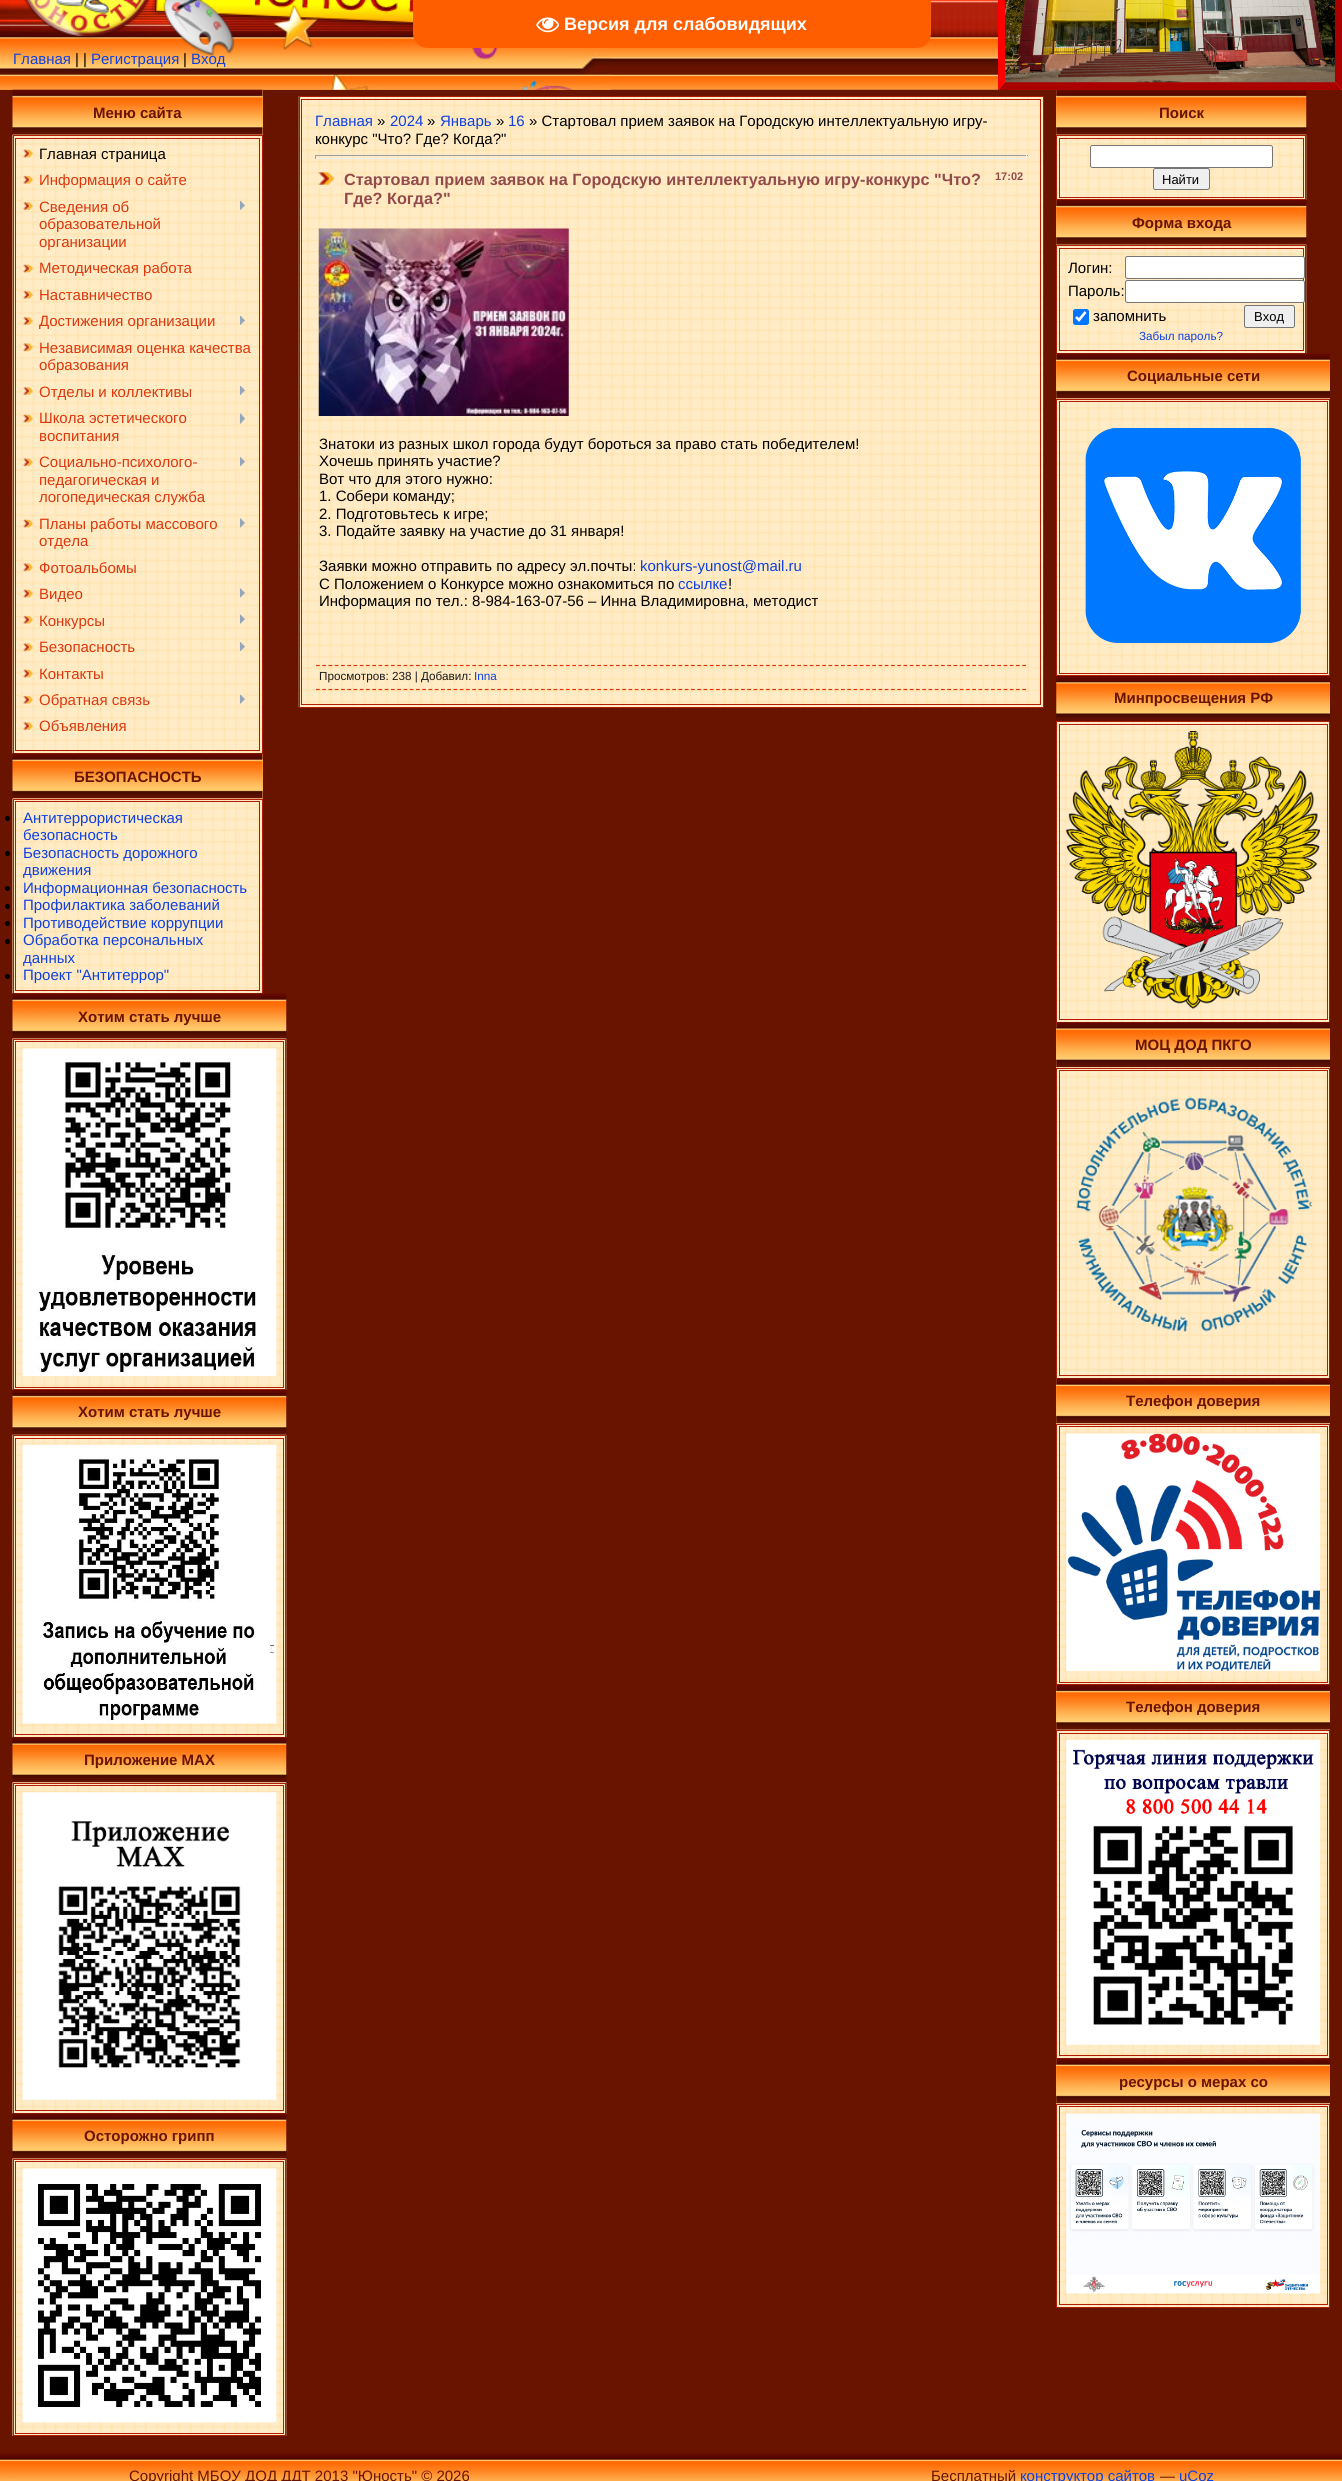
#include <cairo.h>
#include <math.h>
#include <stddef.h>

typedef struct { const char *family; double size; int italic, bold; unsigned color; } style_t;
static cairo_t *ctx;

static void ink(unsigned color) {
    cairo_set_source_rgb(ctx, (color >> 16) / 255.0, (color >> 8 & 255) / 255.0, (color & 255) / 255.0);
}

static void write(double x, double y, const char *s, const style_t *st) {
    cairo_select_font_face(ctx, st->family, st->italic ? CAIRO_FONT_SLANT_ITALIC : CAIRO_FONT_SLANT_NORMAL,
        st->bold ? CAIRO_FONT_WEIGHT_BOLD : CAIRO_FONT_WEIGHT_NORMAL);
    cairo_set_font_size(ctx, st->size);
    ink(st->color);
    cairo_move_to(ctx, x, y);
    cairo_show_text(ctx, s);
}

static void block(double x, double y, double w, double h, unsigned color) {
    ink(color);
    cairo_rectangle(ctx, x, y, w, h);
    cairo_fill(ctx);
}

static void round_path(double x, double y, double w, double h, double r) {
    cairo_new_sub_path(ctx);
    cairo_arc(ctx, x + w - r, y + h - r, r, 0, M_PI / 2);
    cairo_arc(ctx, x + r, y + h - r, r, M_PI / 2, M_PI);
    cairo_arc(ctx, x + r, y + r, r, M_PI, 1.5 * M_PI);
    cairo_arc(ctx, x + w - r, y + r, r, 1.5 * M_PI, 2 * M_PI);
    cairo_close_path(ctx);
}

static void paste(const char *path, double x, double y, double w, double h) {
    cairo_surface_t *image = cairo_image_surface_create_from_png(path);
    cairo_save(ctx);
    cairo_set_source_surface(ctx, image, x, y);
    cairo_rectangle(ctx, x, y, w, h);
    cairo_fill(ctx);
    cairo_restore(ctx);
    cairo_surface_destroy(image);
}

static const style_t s1 = {"Liberation Sans", 18, 0, 1, 0xffffff};
static const style_t s2 = {"Liberation Sans", 15, 0, 0, 0x0e40e2};
static const style_t s3 = {"Liberation Sans", 15, 0, 0, 0x000000};
static const style_t s4 = {"Liberation Sans", 15, 0, 1, 0x691400};
static const style_t s5 = {"Liberation Sans", 15, 0, 0, 0xdc370d};
static const style_t s6 = {"Liberation Sans", 16.25, 0, 1, 0x934a4a};
static const style_t s7 = {"Liberation Sans", 11, 0, 1, 0x934a4a};
static const style_t s8 = {"Liberation Sans", 11.7, 0, 0, 0x1a1a1a};
static const style_t s9 = {"Liberation Sans", 11.7, 0, 0, 0x0e40e2};
static const style_t s10 = {"Liberation Sans", 13, 0, 0, 0x000000};
static const style_t s11 = {"Liberation Sans", 15, 0, 0, 0x691400};

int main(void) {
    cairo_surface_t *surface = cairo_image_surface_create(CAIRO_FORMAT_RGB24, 1342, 2481);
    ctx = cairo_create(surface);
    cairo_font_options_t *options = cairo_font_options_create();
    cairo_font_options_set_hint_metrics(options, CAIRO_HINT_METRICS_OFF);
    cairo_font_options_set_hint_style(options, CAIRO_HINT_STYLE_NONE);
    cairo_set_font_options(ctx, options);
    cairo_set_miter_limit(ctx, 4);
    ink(0x691400);
    cairo_paint(ctx);
    paste("pic2.png", 0, 0, 1342, 90);
    paste("pic3.png", 0, 0, 611, 90);
    ink(0xff5e00);
    cairo_new_path(ctx);
    cairo_move_to(ctx, 413, 0);
    cairo_line_to(ctx, 931, 0);
    cairo_line_to(ctx, 931, 33);
    cairo_curve_to(ctx, 931, 41.5, 924.5, 48, 916, 48);
    cairo_line_to(ctx, 428, 48);
    cairo_curve_to(ctx, 419.5, 48, 413, 41.5, 413, 33);
    cairo_close_path(ctx);
    cairo_fill(ctx);
    paste("pic1.png", 536, 17, 23, 16);
    write(564, 30, "Версия для слабовидящих", &s1);
    write(13, 64, "Главная", &s2);
    write(75, 64, "| |", &s3);
    write(91, 64, "Регистрация", &s2);
    write(183, 64, "|", &s3);
    write(191, 64, "Вход", &s2);
    ink(0xaa0000);
    cairo_new_path(ctx);
    cairo_move_to(ctx, 1342, -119);
    cairo_line_to(ctx, 1342, 90);
    cairo_line_to(ctx, 1335, 82);
    cairo_line_to(ctx, 1335, -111);
    cairo_close_path(ctx);
    cairo_fill(ctx);
    cairo_new_path(ctx);
    cairo_move_to(ctx, 1342, 90);
    cairo_line_to(ctx, 998, 90);
    cairo_line_to(ctx, 1005, 82);
    cairo_line_to(ctx, 1335, 82);
    cairo_close_path(ctx);
    cairo_fill(ctx);
    ink(0xff0000);
    cairo_new_path(ctx);
    cairo_move_to(ctx, 998, 90);
    cairo_line_to(ctx, 998, -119);
    cairo_line_to(ctx, 1005, -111);
    cairo_line_to(ctx, 1005, 82);
    cairo_close_path(ctx);
    cairo_fill(ctx);
    paste("pic4.png", 1005, 0, 330, 83);
    block(13, 90, 250, 45, 0xffac4c);
    paste("pic5.png", 12, 89, 251, 46);
    write(93, 118, "Меню сайта", &s4);
    paste("pic6.png", 12, 134, 251, 620);
    cairo_rectangle(ctx, 13.5, 135.5, 249, 618);
    ink(0xb21b04);
    cairo_set_line_width(ctx, 1);
    cairo_stroke(ctx);
    cairo_rectangle(ctx, 15.5, 138.5, 244, 612);
    cairo_stroke(ctx);
    paste("pic7.png", 22, 149, 11, 9);
    write(39, 159, "Главная страница", &s3);
    paste("pic8.png", 22, 175, 11, 9);
    write(39, 185, "Информация о сайте", &s5);
    paste("pic9.png", 22, 201, 11, 10);
    write(39, 212, "Сведения об", &s5);
    paste("pic10.png", 240, 201, 5, 9);
    write(39, 229, "образовательной", &s5);
    write(39, 247, "организации", &s5);
    paste("pic11.png", 22, 264, 11, 9);
    write(39, 273, "Методическая работа", &s5);
    paste("pic12.png", 22, 289, 11, 11);
    write(39, 300, "Наставничество", &s5);
    paste("pic13.png", 22, 316, 11, 10);
    write(39, 326, "Достижения организации", &s5);
    paste("pic14.png", 240, 316, 5, 9);
    paste("pic15.png", 22, 343, 11, 9);
    write(39, 353, "Независимая оценка качества", &s5);
    write(39, 370, "образования", &s5);
    paste("pic16.png", 22, 386, 11, 10);
    write(39, 397, "Отделы и коллективы", &s5);
    paste("pic17.png", 240, 386, 5, 9);
    paste("pic18.png", 22, 413, 11, 10);
    write(39, 423, "Школа эстетического", &s5);
    paste("pic19.png", 240, 413, 5, 11);
    write(39, 441, "воспитания", &s5);
    paste("pic20.png", 22, 457, 11, 10);
    write(39, 467, "Социально-психолого-", &s5);
    paste("pic21.png", 240, 457, 5, 9);
    write(39, 485, "педагогическая и", &s5);
    write(39, 502, "логопедическая служба", &s5);
    paste("pic22.png", 22, 519, 11, 10);
    write(39, 529, "Планы работы массового", &s5);
    paste("pic23.png", 240, 518, 5, 10);
    write(39, 546, "отдела", &s5);
    paste("pic24.png", 22, 562, 11, 11);
    write(39, 573, "Фотоальбомы", &s5);
    paste("pic25.png", 22, 589, 11, 9);
    write(39, 599, "Видео", &s5);
    paste("pic26.png", 240, 588, 5, 10);
    paste("pic27.png", 22, 615, 11, 9);
    write(39, 626, "Конкурсы", &s5);
    paste("pic28.png", 240, 614, 5, 10);
    paste("pic29.png", 22, 643, 11, 9);
    write(39, 652, "Безопасность", &s5);
    paste("pic30.png", 240, 642, 5, 9);
    paste("pic11.png", 22, 669, 11, 9);
    write(39, 679, "Контакты", &s5);
    paste("pic12.png", 22, 694, 11, 11);
    write(39, 705, "Обратная связь", &s5);
    paste("pic31.png", 240, 694, 5, 10);
    paste("pic13.png", 22, 721, 11, 10);
    write(39, 731, "Объявления", &s5);
    block(13, 754, 250, 45, 0xffac4c);
    paste("pic32.png", 12, 753, 251, 46);
    write(74, 782, "БЕЗОПАСНОСТЬ", &s4);
    paste("pic33.png", 12, 798, 251, 196);
    cairo_rectangle(ctx, 13.5, 799.5, 249, 194);
    ink(0xb21b04);
    cairo_stroke(ctx);
    cairo_rectangle(ctx, 15.5, 801.5, 244, 189);
    cairo_stroke(ctx);
    ink(0x000000);
    cairo_arc(ctx, 7.5, 818.5, 2.5, 0, 2 * M_PI);
    cairo_fill(ctx);
    write(23, 823, "Антитеррористическая", &s2);
    write(23, 840, "безопасность", &s2);
    ink(0x000000);
    cairo_new_path(ctx);
    cairo_arc(ctx, 7.5, 853.5, 2.5, 0, 2 * M_PI);
    cairo_fill(ctx);
    write(23, 858, "Безопасность дорожного", &s2);
    write(23, 875, "движения", &s2);
    ink(0x000000);
    cairo_new_path(ctx);
    cairo_arc(ctx, 7.5, 888.5, 2.5, 0, 2 * M_PI);
    cairo_fill(ctx);
    write(23, 893, "Информационная безопасность", &s2);
    ink(0x000000);
    cairo_new_path(ctx);
    cairo_arc(ctx, 7.5, 906.5, 2.5, 0, 2 * M_PI);
    cairo_fill(ctx);
    write(23, 910, "Профилактика заболеваний", &s2);
    ink(0x000000);
    cairo_new_path(ctx);
    cairo_arc(ctx, 7.5, 923.5, 2.5, 0, 2 * M_PI);
    cairo_fill(ctx);
    write(23, 928, "Противодействие коррупции", &s2);
    ink(0x000000);
    cairo_new_path(ctx);
    cairo_arc(ctx, 7.5, 941.5, 2.5, 0, 2 * M_PI);
    cairo_fill(ctx);
    write(23, 945, "Обработка персональных", &s2);
    write(23, 963, "данных", &s2);
    ink(0x000000);
    cairo_new_path(ctx);
    cairo_arc(ctx, 7.5, 976.5, 2.5, 0, 2 * M_PI);
    cairo_fill(ctx);
    write(23, 980, "Проект \"Антитеррор\"", &s2);
    paste("pic34.png", 12, 993, 275, 46);
    write(78, 1022, "Хотим стать лучше", &s4);
    paste("pic35.png", 12, 1038, 275, 352);
    cairo_rectangle(ctx, 13.5, 1039.5, 272, 350);
    ink(0xb21b04);
    cairo_stroke(ctx);
    cairo_rectangle(ctx, 15.5, 1041.5, 268, 346);
    cairo_stroke(ctx);
    paste("pic36.png", 22, 1048, 255, 328);
    paste("pic37.png", 12, 1389, 275, 46);
    write(78, 1417, "Хотим стать лучше", &s4);
    paste("pic38.png", 12, 1434, 275, 304);
    cairo_rectangle(ctx, 13.5, 1435.5, 272, 302);
    ink(0xb21b04);
    cairo_stroke(ctx);
    cairo_rectangle(ctx, 15.5, 1438.5, 268, 296);
    cairo_stroke(ctx);
    paste("pic39.png", 22, 1444, 255, 280);
    paste("pic40.png", 12, 1737, 275, 46);
    write(84, 1765, "Приложение МАХ", &s4);
    paste("pic41.png", 12, 1782, 275, 332);
    cairo_rectangle(ctx, 13.5, 1783.5, 272, 330);
    ink(0xb21b04);
    cairo_stroke(ctx);
    cairo_rectangle(ctx, 15.5, 1785.5, 268, 325);
    cairo_stroke(ctx);
    paste("pic42.png", 22, 1792, 255, 308);
    paste("pic43.png", 12, 2113, 275, 46);
    write(84, 2141, "Осторожно грипп", &s4);
    paste("pic44.png", 12, 2158, 275, 278);
    cairo_rectangle(ctx, 13.5, 2159.5, 272, 276);
    ink(0xb21b04);
    cairo_stroke(ctx);
    cairo_rectangle(ctx, 15.5, 2161.5, 268, 272);
    cairo_stroke(ctx);
    paste("pic45.png", 22, 2168, 255, 255);
    paste("pic46.png", 298, 96, 745, 612);
    cairo_rectangle(ctx, 299.5, 96.5, 744, 611);
    cairo_stroke(ctx);
    cairo_rectangle(ctx, 301.5, 99.5, 739, 605);
    cairo_stroke(ctx);
    write(315, 126, "Главная", &s2);
    write(377, 126, "»", &s3);
    write(390, 126, "2024", &s2);
    write(427, 126, "»", &s3);
    write(440, 126, "Январь", &s2);
    write(496, 126, "»", &s3);
    write(508, 126, "16", &s2);
    write(529, 126, "» Стартовал прием заявок на Городскую интеллектуальную игру-", &s3);
    write(315, 144, "конкурс \"Что? Где? Когда?\"", &s3);
    block(315, 155, 713, 1, 0x9f9f9f);
    block(1026, 155, 1, 4, 0xeeeeee);
    block(315, 158, 713, 1, 0xeeeeee);
    block(315, 155, 1, 4, 0x9f9f9f);
    paste("pic47.png", 318, 169, 18, 19);
    write(344, 185, "Стартовал прием заявок на Городскую интеллектуальную игру-конкурс \"Что?", &s6);
    write(995, 180, "17:02", &s7);
    write(344, 204, "Где? Когда?\"", &s6);
    paste("pic48.png", 318, 228, 251, 188);
    write(319, 449, "Знатоки из разных школ города будут бороться за право стать победителем!", &s3);
    write(319, 466, "Хочешь принять участие?", &s3);
    write(319, 484, "Вот что для этого нужно:", &s3);
    write(319, 501, "1. Собери команду;", &s3);
    write(319, 519, "2. Подготовьтесь к игре;", &s3);
    write(319, 536, "3. Подайте заявку на участие до 31 января!", &s3);
    write(319, 571, "Заявки можно отправить по адресу эл.почты:", &s3);
    write(640, 571, "konkurs-yunost@mail.ru", &s2);
    write(319, 589, "С Положением о Конкурсе можно ознакомиться по", &s3);
    write(678, 589, "ссылке", &s2);
    write(728, 589, "!", &s3);
    write(319, 606, "Информация по тел.: 8-984-163-07-56 – Инна Владимировна, методист", &s3);
    cairo_new_path(ctx);
    cairo_move_to(ctx, 316, 665.5);
    cairo_line_to(ctx, 1026, 665.5);
    ink(0xdc370d);
    cairo_set_line_width(ctx, 1.2);
    cairo_set_dash(ctx, (double[]){3.75, 2.5}, 2, 0);
    cairo_stroke(ctx);
    cairo_new_path(ctx);
    cairo_move_to(ctx, 316, 689.5);
    cairo_line_to(ctx, 1026, 689.5);
    cairo_stroke(ctx);
    write(319, 680, "Просмотров: 238 | Добавил:", &s8);
    write(474, 680, "Inna", &s9);
    block(1056, 90, 250, 45, 0xffac4c);
    paste("pic49.png", 1056, 90, 251, 45);
    write(1159, 118, "Поиск", &s4);
    paste("pic50.png", 1056, 134, 251, 66);
    cairo_rectangle(ctx, 1056.5, 135.5, 249, 64);
    ink(0xb21b04);
    cairo_set_line_width(ctx, 1);
    cairo_set_dash(ctx, NULL, 0, 0);
    cairo_stroke(ctx);
    cairo_rectangle(ctx, 1059.5, 138.5, 244, 59);
    cairo_stroke(ctx);
    ink(0xffffff);
    round_path(1090.5, 145.5, 182, 22, 2);
    cairo_fill_preserve(ctx);
    ink(0x767676);
    cairo_stroke(ctx);
    ink(0xefefef);
    round_path(1153.5, 168.5, 56, 21, 2);
    cairo_fill_preserve(ctx);
    ink(0x767676);
    cairo_stroke(ctx);
    write(1162, 184, "Найти", &s10);
    block(1056, 200, 250, 45, 0xffac4c);
    paste("pic51.png", 1056, 199, 251, 46);
    write(1132, 228, "Форма входа", &s4);
    paste("pic52.png", 1056, 244, 251, 110);
    cairo_rectangle(ctx, 1056.5, 245.5, 249, 108);
    ink(0xb21b04);
    cairo_stroke(ctx);
    cairo_rectangle(ctx, 1059.5, 248.5, 244, 102);
    cairo_stroke(ctx);
    write(1068, 273, "Логин:", &s3);
    ink(0xffffff);
    round_path(1125.5, 256.5, 179, 22, 2);
    cairo_fill_preserve(ctx);
    ink(0x767676);
    cairo_stroke(ctx);
    write(1068, 296, "Пароль:", &s3);
    ink(0xffffff);
    round_path(1125.5, 280.5, 179, 22, 2);
    cairo_fill_preserve(ctx);
    ink(0x767676);
    cairo_stroke(ctx);
    ink(0x0075ff);
    round_path(1073, 309, 16, 16, 2.5);
    cairo_fill(ctx);
    cairo_new_path(ctx);
    cairo_move_to(ctx, 1076, 317);
    cairo_line_to(ctx, 1079, 320);
    cairo_line_to(ctx, 1085.5, 312);
    ink(0xffffff);
    cairo_set_line_width(ctx, 2.6);
    cairo_stroke(ctx);
    write(1093, 321, "запомнить", &s3);
    ink(0xefefef);
    round_path(1244.5, 305.5, 50, 22, 2);
    cairo_fill_preserve(ctx);
    ink(0x767676);
    cairo_set_line_width(ctx, 1);
    cairo_stroke(ctx);
    write(1254, 321, "Вход", &s10);
    write(1139, 340, "Забыл пароль?", &s9);
    block(1056, 354, 274, 45, 0xffac4c);
    paste("pic53.png", 1056, 353, 274, 46);
    write(1127, 381, "Социальные сети", &s4);
    paste("pic54.png", 1056, 398, 274, 277);
    cairo_rectangle(ctx, 1056.5, 399.5, 273, 276);
    ink(0xb21b04);
    cairo_stroke(ctx);
    cairo_rectangle(ctx, 1059.5, 401.5, 268, 272);
    cairo_stroke(ctx);
    paste("pic55.png", 1085, 428, 216, 215);
    paste("pic56.png", 1056, 676, 274, 45);
    write(1114, 703, "Минпросвещения РФ", &s4);
    paste("pic57.png", 1057, 722, 272, 300);
    cairo_rectangle(ctx, 1056.5, 721.5, 273, 301);
    ink(0xb21b04);
    cairo_stroke(ctx);
    cairo_rectangle(ctx, 1059.5, 724.5, 268, 295);
    cairo_stroke(ctx);
    paste("pic58.png", 1066, 731, 254, 278);
    block(1056, 1023, 274, 45, 0xffac4c);
    paste("pic59.png", 1056, 1022, 274, 46);
    write(1135, 1050, "МОЦ ДОД ПКГО", &s4);
    paste("pic60.png", 1056, 1067, 274, 311);
    cairo_rectangle(ctx, 1056.5, 1068.5, 273, 310);
    ink(0xb21b04);
    cairo_stroke(ctx);
    cairo_rectangle(ctx, 1059.5, 1070.5, 268, 305);
    cairo_stroke(ctx);
    paste("pic61.png", 1076, 1097, 236, 235);
    block(1056, 1379, 274, 45, 0xffac4c);
    paste("pic62.png", 1056, 1378, 274, 46);
    write(1126, 1406, "Телефон доверия", &s4);
    paste("pic63.png", 1056, 1423, 274, 261);
    cairo_rectangle(ctx, 1056.5, 1424.5, 273, 260);
    ink(0xb21b04);
    cairo_stroke(ctx);
    cairo_rectangle(ctx, 1059.5, 1426.5, 268, 256);
    cairo_stroke(ctx);
    paste("pic64.png", 1066, 1433, 254, 238);
    block(1056, 1685, 274, 45, 0xffac4c);
    paste("pic65.png", 1056, 1684, 274, 46);
    write(1126, 1712, "Телефон доверия", &s4);
    paste("pic66.png", 1056, 1729, 274, 329);
    cairo_rectangle(ctx, 1056.5, 1730.5, 273, 328);
    ink(0xb21b04);
    cairo_stroke(ctx);
    cairo_rectangle(ctx, 1059.5, 1733.5, 268, 322);
    cairo_stroke(ctx);
    paste("pic67.png", 1066, 1739, 254, 306);
    block(1056, 2059, 274, 45, 0xffac4c);
    paste("pic68.png", 1056, 2058, 274, 46);
    write(1119, 2087, "ресурсы о мерах со", &s4);
    paste("pic69.png", 1056, 2103, 274, 204);
    cairo_rectangle(ctx, 1056.5, 2104.5, 273, 203);
    ink(0xb21b04);
    cairo_stroke(ctx);
    cairo_rectangle(ctx, 1059.5, 2106.5, 268, 198);
    cairo_stroke(ctx);
    paste("pic70.png", 1066, 2113, 254, 181);
    block(0, 2479, 1342, 2, 0xffac4c);
    paste("pic71.png", 0, 2453, 1342, 26);
    write(129, 2481, "Copyright МБОУ ДОД ДДТ 2013 \"Юность\" © 2026", &s11);
    write(931, 2481, "Бесплатный", &s11);
    write(1020, 2481, "конструктор сайтов", &s2);
    write(1160, 2481, "—", &s11);
    write(1179, 2481, "uCoz", &s2);
    cairo_surface_write_to_png(surface, "screenshot.png");
    cairo_font_options_destroy(options);
    cairo_destroy(ctx);
    cairo_surface_destroy(surface);
    return 0;
}
